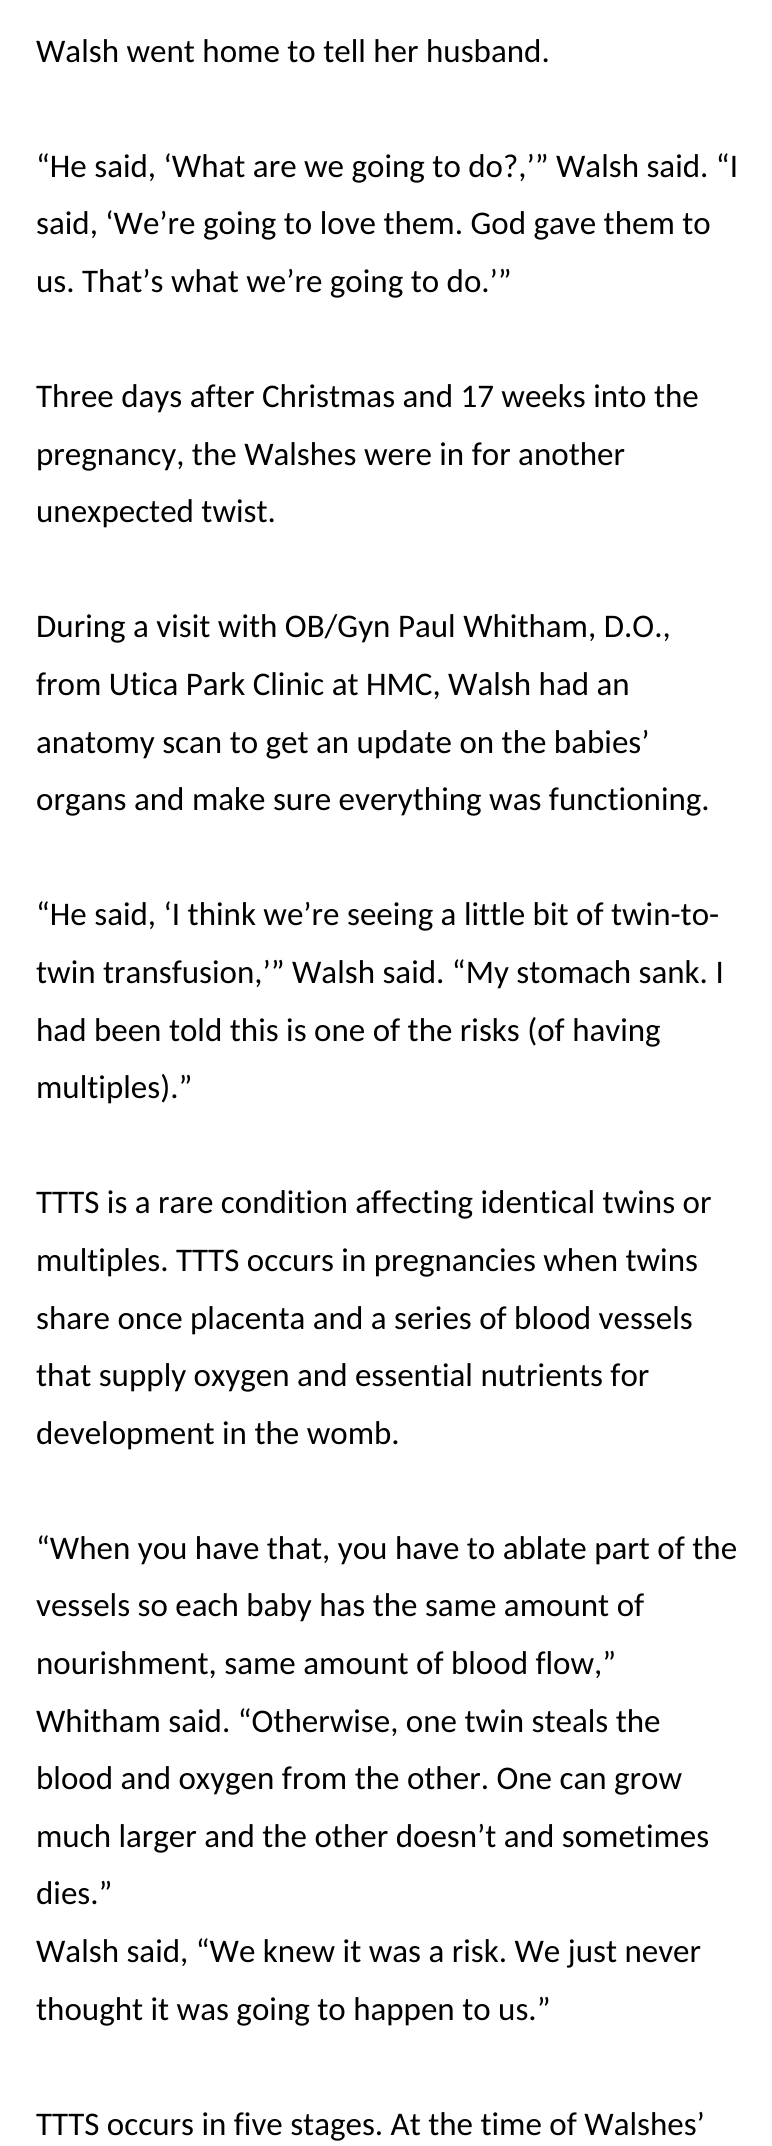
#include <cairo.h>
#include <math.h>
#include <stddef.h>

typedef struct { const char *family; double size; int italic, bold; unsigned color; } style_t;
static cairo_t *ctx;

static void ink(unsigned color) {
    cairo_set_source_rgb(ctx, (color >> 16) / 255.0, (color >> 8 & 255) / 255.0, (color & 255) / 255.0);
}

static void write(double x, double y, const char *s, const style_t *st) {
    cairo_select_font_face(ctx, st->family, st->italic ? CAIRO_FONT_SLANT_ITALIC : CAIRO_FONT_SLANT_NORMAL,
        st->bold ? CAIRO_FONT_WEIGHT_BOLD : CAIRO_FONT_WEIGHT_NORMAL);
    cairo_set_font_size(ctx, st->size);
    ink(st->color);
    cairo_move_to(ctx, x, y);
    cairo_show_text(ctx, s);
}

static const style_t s1 = {"Carlito", 33, 0, 0, 0x000000};

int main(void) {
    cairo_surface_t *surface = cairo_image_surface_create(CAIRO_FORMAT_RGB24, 772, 2146);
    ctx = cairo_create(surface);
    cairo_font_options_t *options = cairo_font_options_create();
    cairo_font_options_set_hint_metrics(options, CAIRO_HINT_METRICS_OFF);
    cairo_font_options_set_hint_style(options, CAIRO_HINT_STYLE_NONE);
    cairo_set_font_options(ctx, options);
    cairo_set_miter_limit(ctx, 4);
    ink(0xffffff);
    cairo_paint(ctx);
    write(36, 62, "Walsh went home to tell her husband.", &s1);
    write(36, 177, "“He said, ‘What are we going to do?,’” Walsh said. “I", &s1);
    write(36, 234, "said, ‘We’re going to love them. God gave them to", &s1);
    write(36, 292, "us. That’s what we’re going to do.’”", &s1);
    write(36, 407, "Three days after Christmas and 17 weeks into the", &s1);
    write(36, 465, "pregnancy, the Walshes were in for another", &s1);
    write(36, 522, "unexpected twist.", &s1);
    write(36, 637, "During a visit with OB/Gyn Paul Whitham, D.O.,", &s1);
    write(36, 695, "from Utica Park Clinic at HMC, Walsh had an", &s1);
    write(36, 753, "anatomy scan to get an update on the babies’", &s1);
    write(36, 810, "organs and make sure everything was functioning.", &s1);
    write(36, 925, "“He said, ‘I think we’re seeing a little bit of twin-to-", &s1);
    write(36, 983, "twin transfusion,’” Walsh said. “My stomach sank. I", &s1);
    write(36, 1041, "had been told this is one of the risks (of having", &s1);
    write(36, 1098, "multiples).”", &s1);
    write(36, 1213, "TTTS is a rare condition affecting identical twins or", &s1);
    write(36, 1271, "multiples. TTTS occurs in pregnancies when twins", &s1);
    write(36, 1329, "share once placenta and a series of blood vessels", &s1);
    write(36, 1386, "that supply oxygen and essential nutrients for", &s1);
    write(36, 1444, "development in the womb.", &s1);
    write(36, 1559, "“When you have that, you have to ablate part of the", &s1);
    write(36, 1616, "vessels so each baby has the same amount of", &s1);
    write(36, 1674, "nourishment, same amount of blood flow,”", &s1);
    write(36, 1732, "Whitham said. “Otherwise, one twin steals the", &s1);
    write(36, 1789, "blood and oxygen from the other. One can grow", &s1);
    write(36, 1847, "much larger and the other doesn’t and sometimes", &s1);
    write(36, 1904, "dies.”", &s1);
    write(36, 1962, "Walsh said, “We knew it was a risk. We just never", &s1);
    write(36, 2020, "thought it was going to happen to us.”", &s1);
    write(36, 2135, "TTTS occurs in five stages. At the time of Walshes’", &s1);
    cairo_surface_write_to_png(surface, "screenshot.png");
    cairo_font_options_destroy(options);
    cairo_destroy(ctx);
    cairo_surface_destroy(surface);
    return 0;
}
